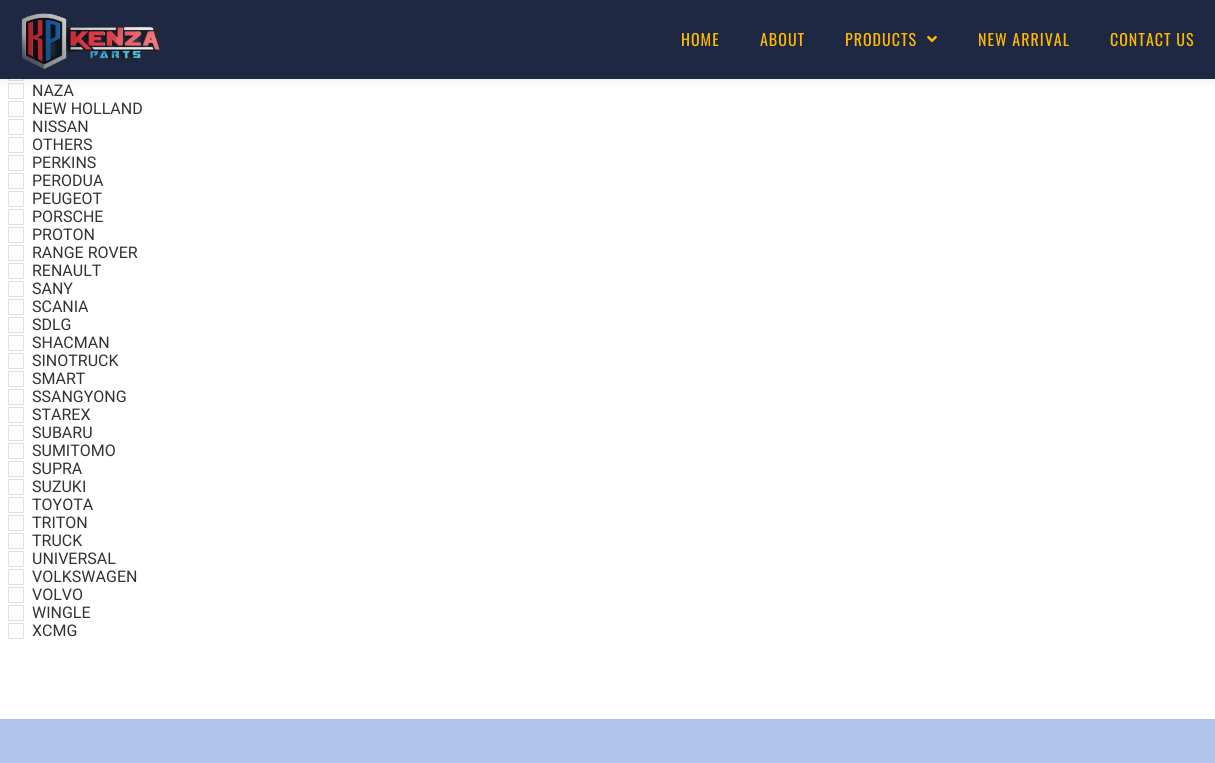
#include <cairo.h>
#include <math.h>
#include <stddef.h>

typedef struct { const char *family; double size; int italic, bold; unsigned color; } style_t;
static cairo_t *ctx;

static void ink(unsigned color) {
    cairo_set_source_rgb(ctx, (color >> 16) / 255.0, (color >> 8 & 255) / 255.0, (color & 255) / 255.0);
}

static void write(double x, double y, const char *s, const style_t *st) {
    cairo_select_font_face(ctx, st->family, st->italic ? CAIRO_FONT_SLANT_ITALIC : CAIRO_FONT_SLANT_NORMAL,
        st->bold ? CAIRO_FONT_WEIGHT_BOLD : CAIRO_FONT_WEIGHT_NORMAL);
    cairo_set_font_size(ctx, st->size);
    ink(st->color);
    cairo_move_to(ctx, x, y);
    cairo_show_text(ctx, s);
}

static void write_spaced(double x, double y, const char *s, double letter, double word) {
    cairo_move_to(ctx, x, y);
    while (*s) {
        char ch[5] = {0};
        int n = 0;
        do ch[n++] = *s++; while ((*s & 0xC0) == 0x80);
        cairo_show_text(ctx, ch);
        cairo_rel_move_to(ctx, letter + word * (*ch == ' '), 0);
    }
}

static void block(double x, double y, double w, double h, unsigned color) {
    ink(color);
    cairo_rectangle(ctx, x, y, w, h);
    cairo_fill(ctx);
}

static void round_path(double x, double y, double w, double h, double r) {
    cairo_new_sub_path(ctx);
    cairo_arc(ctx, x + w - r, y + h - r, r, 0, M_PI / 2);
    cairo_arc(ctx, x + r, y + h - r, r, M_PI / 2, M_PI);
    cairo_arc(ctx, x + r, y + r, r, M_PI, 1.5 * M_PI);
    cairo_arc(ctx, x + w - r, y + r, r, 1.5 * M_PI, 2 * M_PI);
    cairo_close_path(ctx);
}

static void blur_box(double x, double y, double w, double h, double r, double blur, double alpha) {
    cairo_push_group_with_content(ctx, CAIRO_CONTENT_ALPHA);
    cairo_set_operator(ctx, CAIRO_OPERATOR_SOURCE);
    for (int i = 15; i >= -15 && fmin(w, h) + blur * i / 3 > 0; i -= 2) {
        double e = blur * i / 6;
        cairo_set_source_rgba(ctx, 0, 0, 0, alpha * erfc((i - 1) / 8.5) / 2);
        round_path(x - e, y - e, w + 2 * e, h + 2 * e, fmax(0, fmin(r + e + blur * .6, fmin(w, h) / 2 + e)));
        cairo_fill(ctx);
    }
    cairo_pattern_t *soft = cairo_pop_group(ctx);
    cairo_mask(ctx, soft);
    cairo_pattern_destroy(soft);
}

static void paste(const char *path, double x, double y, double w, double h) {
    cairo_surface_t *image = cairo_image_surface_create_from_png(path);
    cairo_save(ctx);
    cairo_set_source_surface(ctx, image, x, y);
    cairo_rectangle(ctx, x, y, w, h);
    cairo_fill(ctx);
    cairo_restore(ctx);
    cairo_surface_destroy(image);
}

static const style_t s1 = {"Roboto", 16, 0, 0, 0x333333};

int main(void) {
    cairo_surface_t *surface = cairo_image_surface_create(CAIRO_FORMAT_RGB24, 1215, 763);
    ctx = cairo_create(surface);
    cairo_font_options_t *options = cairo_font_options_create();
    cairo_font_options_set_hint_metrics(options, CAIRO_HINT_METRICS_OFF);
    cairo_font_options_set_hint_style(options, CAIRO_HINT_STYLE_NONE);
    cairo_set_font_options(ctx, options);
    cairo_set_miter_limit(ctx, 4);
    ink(0xffffff);
    cairo_paint(ctx);
    cairo_rectangle(ctx, 8.5, 65.5, 15, 15);
    ink(0xe1e1e1);
    cairo_set_line_width(ctx, 1);
    cairo_stroke(ctx);
    cairo_rectangle(ctx, 8.5, 83.5, 15, 15);
    cairo_stroke(ctx);
    ink(0x000000);
    blur_box(0, 0, 1215, 79, 0, 5, 0.1);
    block(0, 0, 1215, 79, 0x1e2843);
    paste("pic1.png", 21, 13, 140, 56);
    cairo_select_font_face(ctx, "Oswald", CAIRO_FONT_SLANT_NORMAL, CAIRO_FONT_WEIGHT_NORMAL);
    cairo_set_font_size(ctx, 16);
    ink(0xffba00);
    write_spaced(681, 46, "HOME", 1, 0);
    write_spaced(760, 46, "ABOUT", 1, 0);
    write_spaced(845, 46, "PRODUCTS", 1, 0);
    paste("pic2.png", 927, 35, 10, 8);
    write_spaced(978, 46, "NEW ARRIVAL", 1, 0);
    write_spaced(1110, 46, "CONTACT US", 1, 0);
    write(32, 96, "NAZA", &s1);
    cairo_rectangle(ctx, 8.5, 101.5, 15, 15);
    ink(0xe1e1e1);
    cairo_stroke(ctx);
    write(32, 114, "NEW HOLLAND", &s1);
    cairo_rectangle(ctx, 8.5, 119.5, 15, 15);
    ink(0xe1e1e1);
    cairo_stroke(ctx);
    write(32, 132, "NISSAN", &s1);
    cairo_rectangle(ctx, 8.5, 137.5, 15, 15);
    ink(0xe1e1e1);
    cairo_stroke(ctx);
    write(32, 150, "OTHERS", &s1);
    cairo_rectangle(ctx, 8.5, 155.5, 15, 15);
    ink(0xe1e1e1);
    cairo_stroke(ctx);
    write(32, 168, "PERKINS", &s1);
    cairo_rectangle(ctx, 8.5, 173.5, 15, 15);
    ink(0xe1e1e1);
    cairo_stroke(ctx);
    write(32, 186, "PERODUA", &s1);
    cairo_rectangle(ctx, 8.5, 191.5, 15, 15);
    ink(0xe1e1e1);
    cairo_stroke(ctx);
    write(32, 204, "PEUGEOT", &s1);
    cairo_rectangle(ctx, 8.5, 209.5, 15, 15);
    ink(0xe1e1e1);
    cairo_stroke(ctx);
    write(32, 222, "PORSCHE", &s1);
    cairo_rectangle(ctx, 8.5, 227.5, 15, 15);
    ink(0xe1e1e1);
    cairo_stroke(ctx);
    write(32, 240, "PROTON", &s1);
    cairo_rectangle(ctx, 8.5, 245.5, 15, 15);
    ink(0xe1e1e1);
    cairo_stroke(ctx);
    write(32, 258, "RANGE ROVER", &s1);
    cairo_rectangle(ctx, 8.5, 263.5, 15, 15);
    ink(0xe1e1e1);
    cairo_stroke(ctx);
    write(32, 276, "RENAULT", &s1);
    cairo_rectangle(ctx, 8.5, 281.5, 15, 15);
    ink(0xe1e1e1);
    cairo_stroke(ctx);
    write(32, 294, "SANY", &s1);
    cairo_rectangle(ctx, 8.5, 299.5, 15, 15);
    ink(0xe1e1e1);
    cairo_stroke(ctx);
    write(32, 312, "SCANIA", &s1);
    cairo_rectangle(ctx, 8.5, 317.5, 15, 15);
    ink(0xe1e1e1);
    cairo_stroke(ctx);
    write(32, 330, "SDLG", &s1);
    cairo_rectangle(ctx, 8.5, 335.5, 15, 15);
    ink(0xe1e1e1);
    cairo_stroke(ctx);
    write(32, 348, "SHACMAN", &s1);
    cairo_rectangle(ctx, 8.5, 353.5, 15, 15);
    ink(0xe1e1e1);
    cairo_stroke(ctx);
    write(32, 366, "SINOTRUCK", &s1);
    cairo_rectangle(ctx, 8.5, 371.5, 15, 15);
    ink(0xe1e1e1);
    cairo_stroke(ctx);
    write(32, 384, "SMART", &s1);
    cairo_rectangle(ctx, 8.5, 389.5, 15, 15);
    ink(0xe1e1e1);
    cairo_stroke(ctx);
    write(32, 402, "SSANGYONG", &s1);
    cairo_rectangle(ctx, 8.5, 407.5, 15, 15);
    ink(0xe1e1e1);
    cairo_stroke(ctx);
    write(32, 420, "STAREX", &s1);
    cairo_rectangle(ctx, 8.5, 425.5, 15, 15);
    ink(0xe1e1e1);
    cairo_stroke(ctx);
    write(32, 438, "SUBARU", &s1);
    cairo_rectangle(ctx, 8.5, 443.5, 15, 15);
    ink(0xe1e1e1);
    cairo_stroke(ctx);
    write(32, 456, "SUMITOMO", &s1);
    cairo_rectangle(ctx, 8.5, 461.5, 15, 15);
    ink(0xe1e1e1);
    cairo_stroke(ctx);
    write(32, 474, "SUPRA", &s1);
    cairo_rectangle(ctx, 8.5, 479.5, 15, 15);
    ink(0xe1e1e1);
    cairo_stroke(ctx);
    write(32, 492, "SUZUKI", &s1);
    cairo_rectangle(ctx, 8.5, 497.5, 15, 15);
    ink(0xe1e1e1);
    cairo_stroke(ctx);
    write(32, 510, "TOYOTA", &s1);
    cairo_rectangle(ctx, 8.5, 515.5, 15, 15);
    ink(0xe1e1e1);
    cairo_stroke(ctx);
    write(32, 528, "TRITON", &s1);
    cairo_rectangle(ctx, 8.5, 533.5, 15, 15);
    ink(0xe1e1e1);
    cairo_stroke(ctx);
    write(32, 546, "TRUCK", &s1);
    cairo_rectangle(ctx, 8.5, 551.5, 15, 15);
    ink(0xe1e1e1);
    cairo_stroke(ctx);
    write(32, 564, "UNIVERSAL", &s1);
    cairo_rectangle(ctx, 8.5, 569.5, 15, 15);
    ink(0xe1e1e1);
    cairo_stroke(ctx);
    write(32, 582, "VOLKSWAGEN", &s1);
    cairo_rectangle(ctx, 8.5, 587.5, 15, 15);
    ink(0xe1e1e1);
    cairo_stroke(ctx);
    write(32, 600, "VOLVO", &s1);
    cairo_rectangle(ctx, 8.5, 605.5, 15, 15);
    ink(0xe1e1e1);
    cairo_stroke(ctx);
    write(32, 618, "WINGLE", &s1);
    cairo_rectangle(ctx, 8.5, 623.5, 15, 15);
    ink(0xe1e1e1);
    cairo_stroke(ctx);
    write(32, 636, "XCMG", &s1);
    block(0, 719, 1215, 44, 0xb0c3e8);
    cairo_surface_write_to_png(surface, "screenshot.png");
    cairo_font_options_destroy(options);
    cairo_destroy(ctx);
    cairo_surface_destroy(surface);
    return 0;
}
